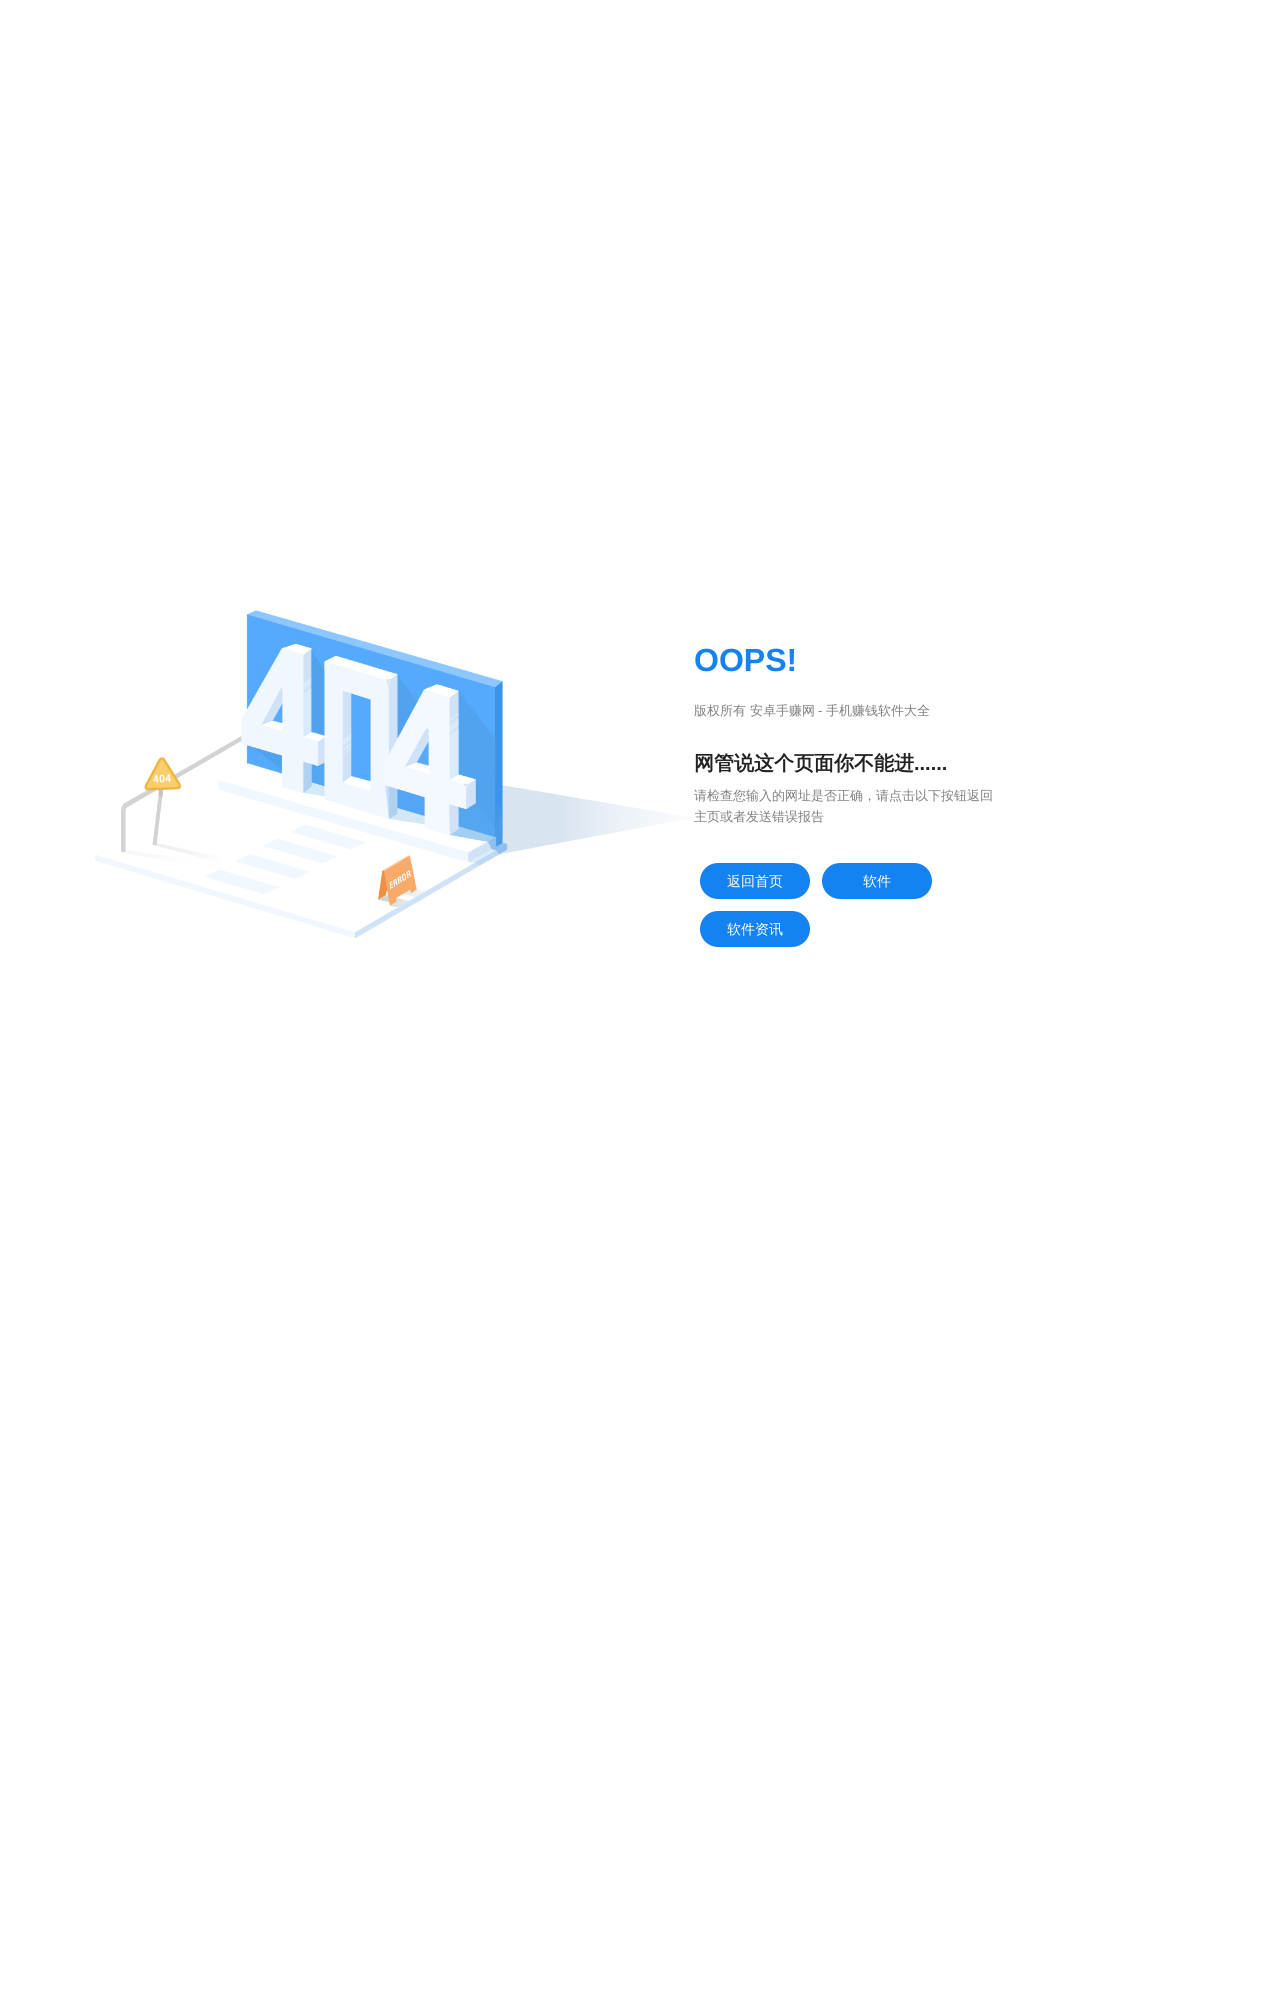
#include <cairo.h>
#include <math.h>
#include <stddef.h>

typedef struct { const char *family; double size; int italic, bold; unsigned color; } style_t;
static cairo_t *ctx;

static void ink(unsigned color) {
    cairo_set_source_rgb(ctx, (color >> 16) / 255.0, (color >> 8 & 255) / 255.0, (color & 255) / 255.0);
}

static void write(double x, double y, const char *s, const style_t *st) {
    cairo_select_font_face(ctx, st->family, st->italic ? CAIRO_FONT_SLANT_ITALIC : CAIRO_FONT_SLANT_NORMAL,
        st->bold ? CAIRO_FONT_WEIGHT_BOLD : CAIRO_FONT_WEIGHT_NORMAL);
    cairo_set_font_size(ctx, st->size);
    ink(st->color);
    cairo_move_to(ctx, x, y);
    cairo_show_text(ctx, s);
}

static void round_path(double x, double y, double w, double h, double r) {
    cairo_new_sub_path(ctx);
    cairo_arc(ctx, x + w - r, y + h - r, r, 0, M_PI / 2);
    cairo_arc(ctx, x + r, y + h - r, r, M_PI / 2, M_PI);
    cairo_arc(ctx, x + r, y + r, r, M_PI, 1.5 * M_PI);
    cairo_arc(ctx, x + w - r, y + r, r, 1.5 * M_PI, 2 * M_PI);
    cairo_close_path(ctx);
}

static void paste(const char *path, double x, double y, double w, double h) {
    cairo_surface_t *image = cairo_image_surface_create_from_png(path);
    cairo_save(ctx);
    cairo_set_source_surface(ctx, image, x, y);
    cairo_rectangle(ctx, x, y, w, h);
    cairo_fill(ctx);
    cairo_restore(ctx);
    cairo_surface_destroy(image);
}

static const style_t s1 = {"Liberation Sans", 32, 0, 1, 0x1482f0};
static const style_t s2 = {"WenQuanYi Zen Hei Medium", 13, 0, 0, 0x808080};
static const style_t s3 = {"Liberation Sans", 13, 0, 0, 0x808080};
static const style_t s4 = {"WenQuanYi Zen Hei", 20, 0, 1, 0x222222};
static const style_t s5 = {"Liberation Sans", 20, 0, 1, 0x222222};
static const style_t s6 = {"WenQuanYi Zen Hei Medium", 14, 0, 0, 0xffffff};

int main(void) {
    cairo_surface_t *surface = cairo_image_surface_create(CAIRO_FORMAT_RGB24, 1288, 1991);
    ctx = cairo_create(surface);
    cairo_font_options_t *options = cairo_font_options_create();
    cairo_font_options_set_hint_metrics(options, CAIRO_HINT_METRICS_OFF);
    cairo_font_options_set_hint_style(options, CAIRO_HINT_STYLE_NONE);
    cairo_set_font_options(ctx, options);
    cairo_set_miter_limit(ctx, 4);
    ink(0xffffff);
    cairo_paint(ctx);
    paste("pic1.png", 95, 610, 597, 329);
    write(694, 671, "OOPS!", &s1);
    write(694, 715, "版权所有 安卓手赚网", &s2);
    write(818, 715, "-", &s3);
    write(826, 715, "手机赚钱软件大全", &s2);
    write(694, 770, "网管说这个页面你不能进", &s4);
    write(914, 770, "......", &s5);
    write(694, 800, "请检查您输入的网址是否正确，请点击以下按钮返回", &s2);
    write(694, 821, "主页或者发送错误报告", &s2);
    ink(0x1482f0);
    round_path(700, 863, 110, 36, 18);
    cairo_fill(ctx);
    write(727, 886, "返回首页", &s6);
    ink(0x1482f0);
    round_path(822, 863, 110, 36, 18);
    cairo_fill(ctx);
    write(863, 886, "软件", &s6);
    ink(0x1482f0);
    round_path(700, 911, 110, 36, 18);
    cairo_fill(ctx);
    write(727, 934, "软件资讯", &s6);
    cairo_surface_write_to_png(surface, "screenshot.png");
    cairo_font_options_destroy(options);
    cairo_destroy(ctx);
    cairo_surface_destroy(surface);
    return 0;
}
